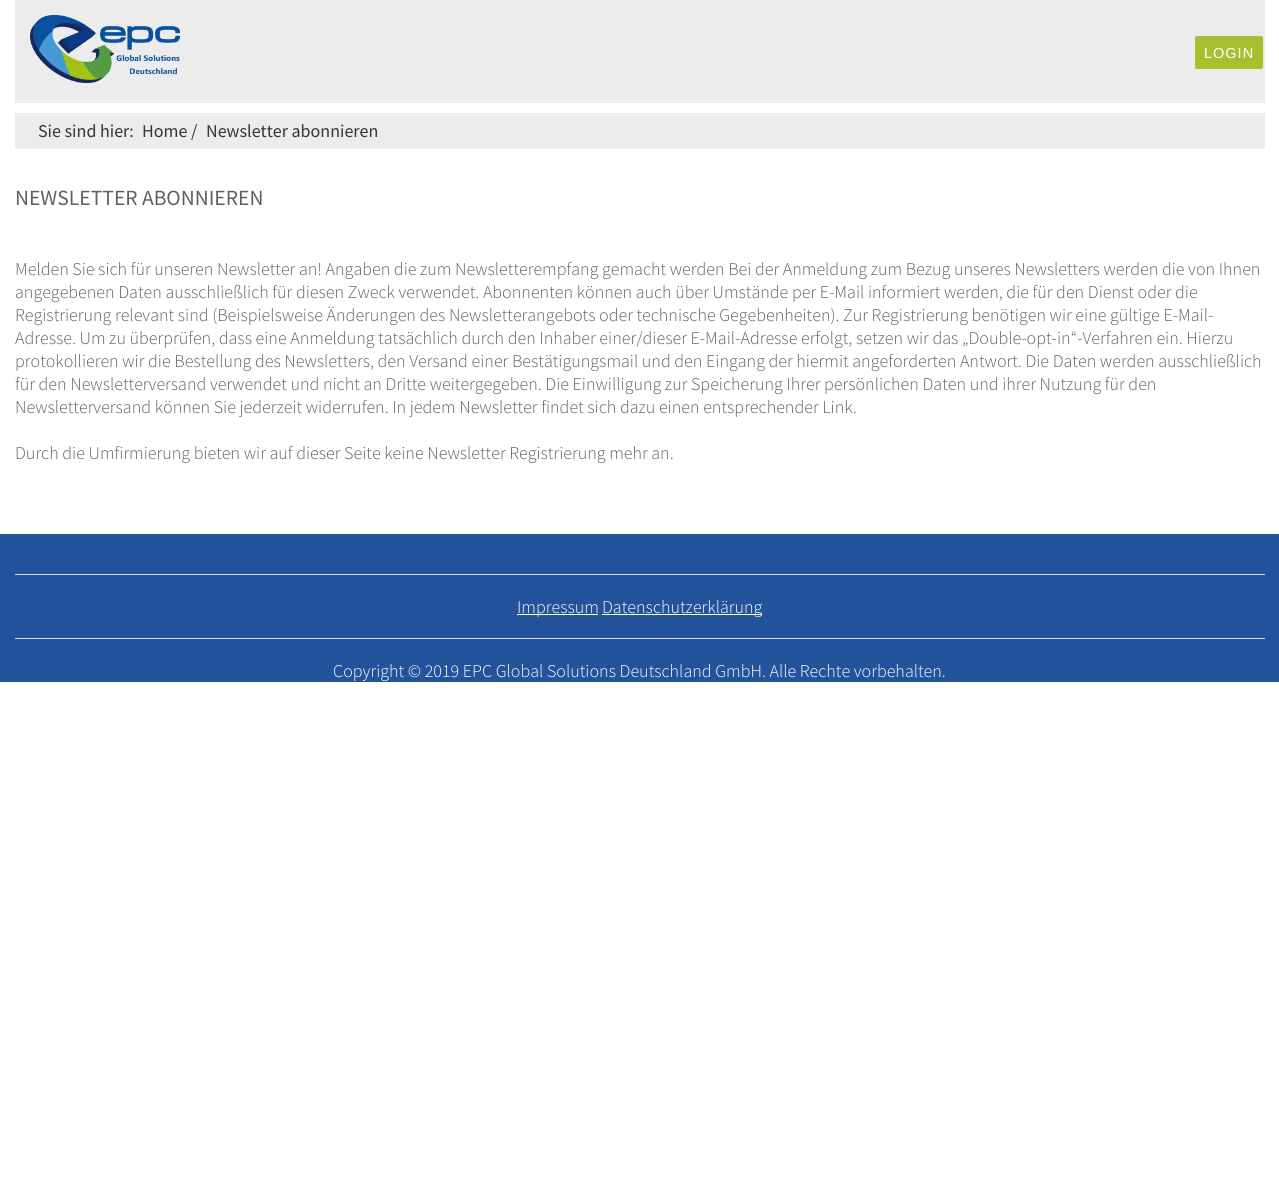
#include <cairo.h>
#include <math.h>
#include <stddef.h>

typedef struct { const char *family; double size; int italic, bold; unsigned color; } style_t;
static cairo_t *ctx;

static void ink(unsigned color) {
    cairo_set_source_rgb(ctx, (color >> 16) / 255.0, (color >> 8 & 255) / 255.0, (color & 255) / 255.0);
}

static void write(double x, double y, const char *s, const style_t *st) {
    cairo_select_font_face(ctx, st->family, st->italic ? CAIRO_FONT_SLANT_ITALIC : CAIRO_FONT_SLANT_NORMAL,
        st->bold ? CAIRO_FONT_WEIGHT_BOLD : CAIRO_FONT_WEIGHT_NORMAL);
    cairo_set_font_size(ctx, st->size);
    ink(st->color);
    cairo_move_to(ctx, x, y);
    cairo_show_text(ctx, s);
}

static void write_spaced(double x, double y, const char *s, double letter, double word) {
    cairo_move_to(ctx, x, y);
    while (*s) {
        char ch[5] = {0};
        int n = 0;
        do ch[n++] = *s++; while ((*s & 0xC0) == 0x80);
        cairo_show_text(ctx, ch);
        cairo_rel_move_to(ctx, letter + word * (*ch == ' '), 0);
    }
}

static void block(double x, double y, double w, double h, unsigned color) {
    ink(color);
    cairo_rectangle(ctx, x, y, w, h);
    cairo_fill(ctx);
}

static void round_path(double x, double y, double w, double h, double r) {
    cairo_new_sub_path(ctx);
    cairo_arc(ctx, x + w - r, y + h - r, r, 0, M_PI / 2);
    cairo_arc(ctx, x + r, y + h - r, r, M_PI / 2, M_PI);
    cairo_arc(ctx, x + r, y + r, r, M_PI, 1.5 * M_PI);
    cairo_arc(ctx, x + w - r, y + r, r, 1.5 * M_PI, 2 * M_PI);
    cairo_close_path(ctx);
}

static void paste(const char *path, double x, double y, double w, double h) {
    cairo_surface_t *image = cairo_image_surface_create_from_png(path);
    cairo_save(ctx);
    cairo_set_source_surface(ctx, image, x, y);
    cairo_rectangle(ctx, x, y, w, h);
    cairo_fill(ctx);
    cairo_restore(ctx);
    cairo_surface_destroy(image);
}

static const style_t s1 = {"Source Sans Pro", 18, 0, 0, 0x353535};
static const style_t s2 = {"Source Sans Pro", 21.6, 0, 0, 0x606060};
static const style_t s3 = {"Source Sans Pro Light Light", 18, 0, 0, 0x606060};
static const style_t s4 = {"Source Sans Pro Light Light", 18, 0, 0, 0xffffff};

int main(void) {
    cairo_surface_t *surface = cairo_image_surface_create(CAIRO_FORMAT_RGB24, 1279, 1192);
    ctx = cairo_create(surface);
    cairo_font_options_t *options = cairo_font_options_create();
    cairo_font_options_set_hint_metrics(options, CAIRO_HINT_METRICS_OFF);
    cairo_font_options_set_hint_style(options, CAIRO_HINT_STYLE_NONE);
    cairo_set_font_options(ctx, options);
    cairo_set_miter_limit(ctx, 4);
    ink(0xffffff);
    cairo_paint(ctx);
    block(15, 0, 1250, 103, 0xececec);
    paste("pic1.png", 30, 15, 150, 68);
    ink(0xa6c030);
    round_path(1195, 36, 68, 33, 2);
    cairo_fill(ctx);
    cairo_select_font_face(ctx, "Liberation Sans", CAIRO_FONT_SLANT_NORMAL, CAIRO_FONT_WEIGHT_NORMAL);
    cairo_set_font_size(ctx, 14.5);
    ink(0xffffff);
    write_spaced(1204, 58, "LOGIN", 1, 0);
    block(15, 113, 1250, 36, 0xececec);
    write(38, 137, "Sie sind hier:", &s1);
    write(142, 137, "Home /", &s1);
    write(206, 137, "Newsletter abonnieren", &s1);
    write(15, 205, "NEWSLETTER ABONNIEREN", &s2);
    write(15, 275, "Melden Sie sich für unseren Newsletter an! Angaben die zum Newsletterempfang gemacht werden Bei der Anmeldung zum Bezug unseres Newsletters werden die von Ihnen", &s3);
    write(15, 298, "angegebenen Daten ausschließlich für diesen Zweck verwendet. Abonnenten können auch über Umstände per E-Mail informiert werden, die für den Dienst oder die", &s3);
    write(15, 321, "Registrierung relevant sind (Beispielsweise Änderungen des Newsletterangebots oder technische Gegebenheiten). Zur Registrierung benötigen wir eine gültige E-Mail-", &s3);
    write(15, 344, "Adresse. Um zu überprüfen, dass eine Anmeldung tatsächlich durch den Inhaber einer/dieser E-Mail-Adresse erfolgt, setzen wir das „Double-opt-in“-Verfahren ein. Hierzu", &s3);
    write(15, 367, "protokollieren wir die Bestellung des Newsletters, den Versand einer Bestätigungsmail und den Eingang der hiermit angeforderten Antwort. Die Daten werden ausschließlich", &s3);
    write(15, 390, "für den Newsletterversand verwendet und nicht an Dritte weitergegeben. Die Einwilligung zur Speicherung Ihrer persönlichen Daten und ihrer Nutzung für den", &s3);
    write(15, 413, "Newsletterversand können Sie jederzeit widerrufen. In jedem Newsletter findet sich dazu einen entsprechender Link.", &s3);
    write(15, 459, "Durch die Umfirmierung bieten wir auf dieser Seite keine Newsletter Registrierung mehr an.", &s3);
    block(0, 534, 1279, 148, 0x23549b);
    block(15, 574, 1250, 1, 0xdadada);
    block(517, 614, 81, 1, 0xffffff);
    write(517, 613, "Impressum", &s4);
    block(602, 614, 160, 1, 0xffffff);
    write(602, 613, "Datenschutzerklärung", &s4);
    block(15, 638, 1250, 1, 0xdadada);
    write(333, 677, "Copyright © 2019 EPC Global Solutions Deutschland GmbH. Alle Rechte vorbehalten.", &s4);
    cairo_surface_write_to_png(surface, "screenshot.png");
    cairo_font_options_destroy(options);
    cairo_destroy(ctx);
    cairo_surface_destroy(surface);
    return 0;
}
